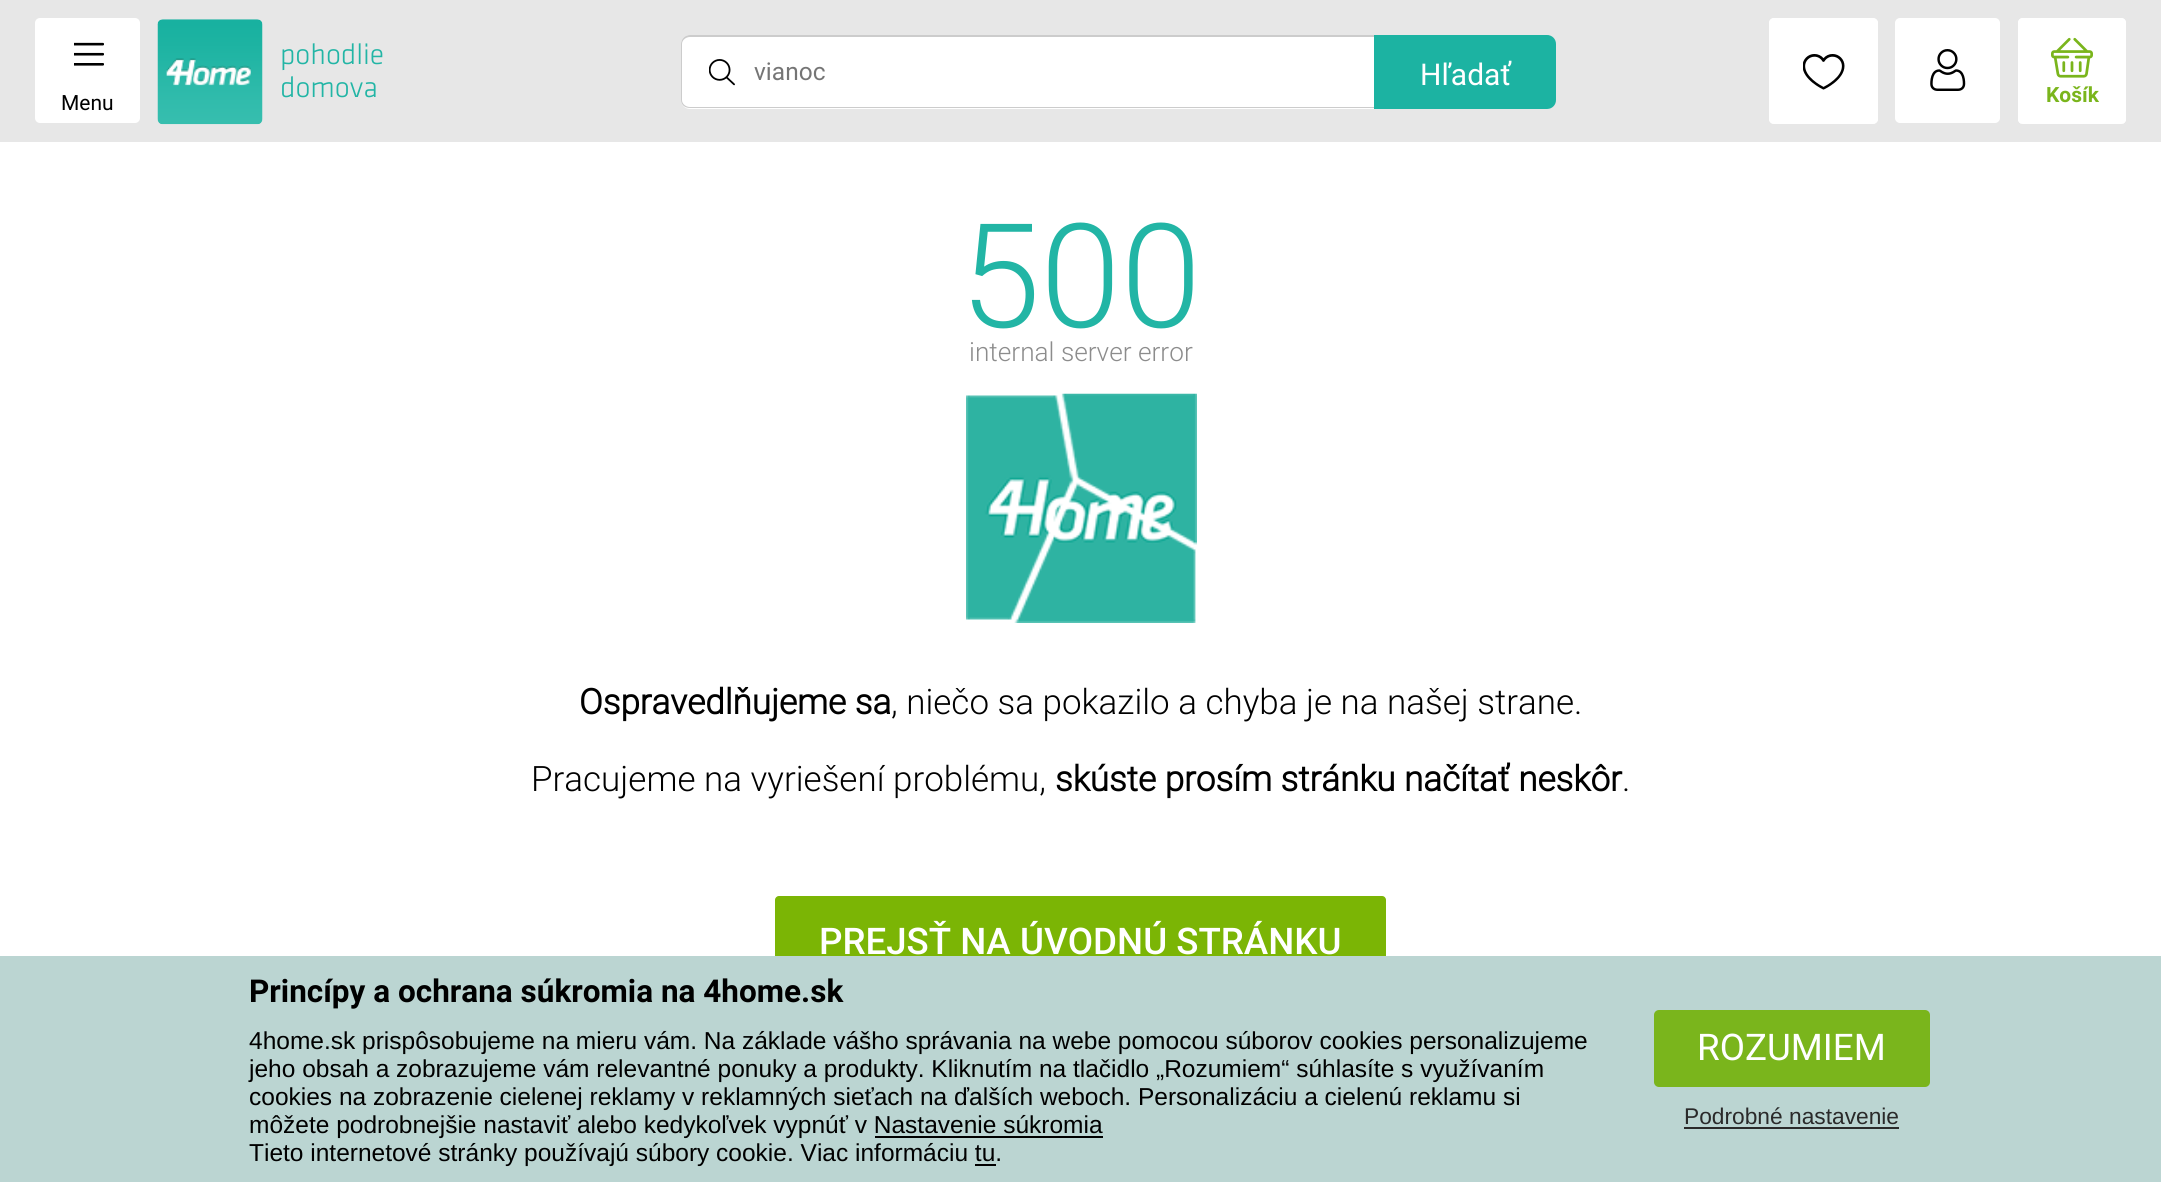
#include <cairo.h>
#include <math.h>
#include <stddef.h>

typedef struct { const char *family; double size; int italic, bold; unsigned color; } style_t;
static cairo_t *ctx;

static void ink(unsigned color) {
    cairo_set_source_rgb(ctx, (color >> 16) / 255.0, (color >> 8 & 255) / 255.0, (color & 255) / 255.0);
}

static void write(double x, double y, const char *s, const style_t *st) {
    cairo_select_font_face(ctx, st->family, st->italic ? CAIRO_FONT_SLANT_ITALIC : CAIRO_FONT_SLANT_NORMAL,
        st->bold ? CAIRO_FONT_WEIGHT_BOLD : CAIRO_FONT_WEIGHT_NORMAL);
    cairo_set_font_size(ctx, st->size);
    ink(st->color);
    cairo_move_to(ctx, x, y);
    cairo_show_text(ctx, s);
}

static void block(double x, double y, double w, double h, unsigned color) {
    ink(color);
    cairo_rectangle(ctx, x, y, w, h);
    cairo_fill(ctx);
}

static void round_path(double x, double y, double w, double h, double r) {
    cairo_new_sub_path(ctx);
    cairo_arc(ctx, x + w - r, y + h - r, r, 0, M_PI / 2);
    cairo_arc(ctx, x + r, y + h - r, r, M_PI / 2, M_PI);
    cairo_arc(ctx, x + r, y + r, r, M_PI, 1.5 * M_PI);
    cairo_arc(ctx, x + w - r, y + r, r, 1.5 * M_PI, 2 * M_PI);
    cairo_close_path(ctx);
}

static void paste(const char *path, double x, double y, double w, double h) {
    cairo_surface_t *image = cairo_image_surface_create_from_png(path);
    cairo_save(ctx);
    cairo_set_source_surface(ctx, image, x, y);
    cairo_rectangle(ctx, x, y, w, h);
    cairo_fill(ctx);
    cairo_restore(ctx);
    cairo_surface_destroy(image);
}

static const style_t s1 = {"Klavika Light", 30, 0, 0, 0x22b5a5};
static const style_t s2 = {"Roboto", 21, 0, 0, 0x000000};
static const style_t s3 = {"Roboto", 24.5, 0, 0, 0x757575};
static const style_t s4 = {"Roboto", 30, 0, 0, 0xffffff};
static const style_t s5 = {"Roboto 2", 21, 0, 1, 0x7ab51c};
static const style_t s6 = {"Roboto Light", 145, 0, 0, 0x22b5a5};
static const style_t s7 = {"Roboto Light", 26.25, 0, 0, 0x8c8c8c};
static const style_t s8 = {"Roboto", 35, 0, 1, 0x000000};
static const style_t s9 = {"Roboto Light", 35, 0, 0, 0x000000};
static const style_t s10 = {"Roboto Medium", 36.75, 0, 0, 0xffffff};
static const style_t s11 = {"Roboto 2", 31.5, 0, 1, 0x000000};
static const style_t s12 = {"Liberation Sans", 24.5, 0, 0, 0x000000};
static const style_t s13 = {"Roboto", 36.75, 0, 0, 0xffffff};
static const style_t s14 = {"Liberation Sans", 22.75, 0, 0, 0x2a2a2a};

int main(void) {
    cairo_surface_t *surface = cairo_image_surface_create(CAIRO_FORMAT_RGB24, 2161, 1182);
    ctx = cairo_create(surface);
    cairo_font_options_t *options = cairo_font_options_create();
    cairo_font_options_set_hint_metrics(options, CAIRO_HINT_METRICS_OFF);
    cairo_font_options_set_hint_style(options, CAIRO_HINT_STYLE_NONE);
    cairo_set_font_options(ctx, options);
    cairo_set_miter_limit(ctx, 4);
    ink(0xffffff);
    cairo_paint(ctx);
    block(0, 0, 2161, 142, 0xe7e7e7);
    paste("pic1.png", 157, 19, 106, 106);
    write(280, 64, "pohodlie", &s1);
    write(280, 97, "domova", &s1);
    ink(0xffffff);
    round_path(35, 18, 105, 105, 5);
    cairo_fill(ctx);
    paste("pic2.png", 74, 42, 30, 24);
    write(61, 110, "Menu", &s2);
    ink(0xffffff);
    cairo_new_path(ctx);
    cairo_move_to(ctx, 690, 35);
    cairo_line_to(ctx, 1549, 35);
    cairo_line_to(ctx, 1549, 109);
    cairo_line_to(ctx, 690, 109);
    cairo_curve_to(ctx, 685, 109, 681, 105, 681, 100);
    cairo_line_to(ctx, 681, 44);
    cairo_curve_to(ctx, 681, 39, 685, 35, 690, 35);
    cairo_close_path(ctx);
    cairo_fill(ctx);
    paste("pic3.png", 709, 59, 26, 27);
    ink(0xcccccc);
    cairo_set_fill_rule(ctx, CAIRO_FILL_RULE_EVEN_ODD);
    cairo_new_path(ctx);
    cairo_move_to(ctx, 690, 35);
    cairo_line_to(ctx, 1549, 35);
    cairo_line_to(ctx, 1549, 108);
    cairo_line_to(ctx, 690, 108);
    cairo_curve_to(ctx, 685, 108, 681, 105, 681, 100);
    cairo_line_to(ctx, 681, 44);
    cairo_curve_to(ctx, 681, 39, 685, 35, 690, 35);
    cairo_close_path(ctx);
    cairo_move_to(ctx, 690, 37);
    cairo_line_to(ctx, 1549, 37);
    cairo_line_to(ctx, 1549, 107);
    cairo_line_to(ctx, 690, 107);
    cairo_curve_to(ctx, 686, 107, 682, 104, 682, 100);
    cairo_line_to(ctx, 682, 44);
    cairo_curve_to(ctx, 682, 40, 686, 37, 690, 37);
    cairo_close_path(ctx);
    cairo_fill(ctx);
    write(754, 80, "vianoc", &s3);
    ink(0x1cb3a2);
    cairo_new_path(ctx);
    cairo_move_to(ctx, 1375, 36);
    cairo_line_to(ctx, 1547, 36);
    cairo_curve_to(ctx, 1551.5, 36, 1555, 39.5, 1555, 44);
    cairo_line_to(ctx, 1555, 100);
    cairo_curve_to(ctx, 1555, 104.5, 1551.5, 108, 1547, 108);
    cairo_line_to(ctx, 1375, 108);
    cairo_close_path(ctx);
    cairo_fill_preserve(ctx);
    cairo_stroke(ctx);
    write(1420, 85, "Hľadať", &s4);
    round_path(1769, 18, 109, 106, 5);
    cairo_fill(ctx);
    cairo_new_path(ctx);
    cairo_move_to(ctx, 1774, 18);
    cairo_line_to(ctx, 1872, 18);
    cairo_curve_to(ctx, 1875, 18, 1878, 20, 1878, 23);
    cairo_line_to(ctx, 1878, 119);
    cairo_curve_to(ctx, 1878, 122, 1875, 124, 1872, 124);
    cairo_line_to(ctx, 1774, 124);
    cairo_curve_to(ctx, 1772, 124, 1769, 122, 1769, 119);
    cairo_line_to(ctx, 1769, 23);
    cairo_curve_to(ctx, 1769, 20, 1772, 18, 1774, 18);
    cairo_close_path(ctx);
    cairo_move_to(ctx, 1774, 19);
    cairo_line_to(ctx, 1872, 19);
    cairo_curve_to(ctx, 1874, 19, 1876, 21, 1876, 23);
    cairo_line_to(ctx, 1876, 119);
    cairo_curve_to(ctx, 1876, 122, 1874, 124, 1872, 124);
    cairo_line_to(ctx, 1774, 124);
    cairo_curve_to(ctx, 1773, 124, 1771, 122, 1771, 119);
    cairo_line_to(ctx, 1771, 23);
    cairo_curve_to(ctx, 1771, 21, 1773, 19, 1774, 19);
    cairo_close_path(ctx);
    cairo_fill(ctx);
    paste("pic4.png", 1803, 54, 42, 36);
    round_path(1896, 19, 103, 103, 4);
    cairo_fill_preserve(ctx);
    cairo_stroke(ctx);
    paste("pic5.png", 1930, 49, 36, 42);
    round_path(2018, 18, 108, 106, 5);
    cairo_fill(ctx);
    cairo_new_path(ctx);
    cairo_move_to(ctx, 2023, 18);
    cairo_line_to(ctx, 2121, 18);
    cairo_curve_to(ctx, 2124, 18, 2126, 20, 2126, 23);
    cairo_line_to(ctx, 2126, 119);
    cairo_curve_to(ctx, 2126, 122, 2124, 124, 2121, 124);
    cairo_line_to(ctx, 2023, 124);
    cairo_curve_to(ctx, 2020, 124, 2018, 122, 2018, 119);
    cairo_line_to(ctx, 2018, 23);
    cairo_curve_to(ctx, 2018, 20, 2020, 18, 2023, 18);
    cairo_close_path(ctx);
    cairo_move_to(ctx, 2023, 19);
    cairo_line_to(ctx, 2121, 19);
    cairo_curve_to(ctx, 2123, 19, 2124, 21, 2124, 23);
    cairo_line_to(ctx, 2124, 119);
    cairo_curve_to(ctx, 2124, 122, 2123, 124, 2121, 124);
    cairo_line_to(ctx, 2023, 124);
    cairo_curve_to(ctx, 2021, 124, 2020, 122, 2020, 119);
    cairo_line_to(ctx, 2020, 23);
    cairo_curve_to(ctx, 2020, 21, 2021, 19, 2023, 19);
    cairo_close_path(ctx);
    cairo_fill(ctx);
    paste("pic6.png", 2051, 37, 42, 41);
    write(2046, 102, "Košík", &s5);
    write(960, 327, "500", &s6);
    write(969, 361, "internal server error", &s7);
    paste("pic7.png", 966, 393, 231, 230);
    write(579, 714, "Ospravedlňujeme sa", &s8);
    write(891, 714, ", niečo sa pokazilo a chyba je na našej strane.", &s9);
    write(531, 791, "Pracujeme na vyriešení problému,", &s9);
    write(1055, 791, "skúste prosím stránku načítať neskôr", &s8);
    write(1622, 791, ".", &s9);
    ink(0x7bb505);
    round_path(775, 896, 611, 91, 4);
    cairo_fill(ctx);
    write(819, 954, "PREJSŤ NA ÚVODNÚ STRÁNKU", &s10);
    block(0, 956, 2161, 226, 0xbbd5d2);
    write(249, 1002, "Princípy a ochrana súkromia na 4home.sk", &s11);
    write(249, 1049, "4home.sk prispôsobujeme na mieru vám. Na základe vášho správania na webe pomocou súborov cookies personalizujeme", &s12);
    write(249, 1077, "jeho obsah a zobrazujeme vám relevantné ponuky a produkty. Kliknutím na tlačidlo „Rozumiem“ súhlasíte s využívaním", &s12);
    write(249, 1105, "cookies na zobrazenie cielenej reklamy v reklamných sieťach na ďalších weboch. Personalizáciu a cielenú reklamu si", &s12);
    write(249, 1133, "môžete podrobnejšie nastaviť alebo kedykoľvek vypnúť v Nastavenie súkromia", &s12);
    block(875, 1136, 228, 2, 0x000000);
    write(249, 1161, "Tieto internetové stránky používajú súbory cookie. Viac informáciu tu.", &s12);
    block(975, 1164, 21, 2, 0x000000);
    ink(0x7ab51c);
    round_path(1654, 1010, 276, 77, 5);
    cairo_fill(ctx);
    write(1697, 1060, "ROZUMIEM", &s13);
    write(1684, 1124, "Podrobné nastavenie", &s14);
    block(1684, 1127, 215, 2, 0x2a2a2a);
    cairo_surface_write_to_png(surface, "screenshot.png");
    cairo_font_options_destroy(options);
    cairo_destroy(ctx);
    cairo_surface_destroy(surface);
    return 0;
}
